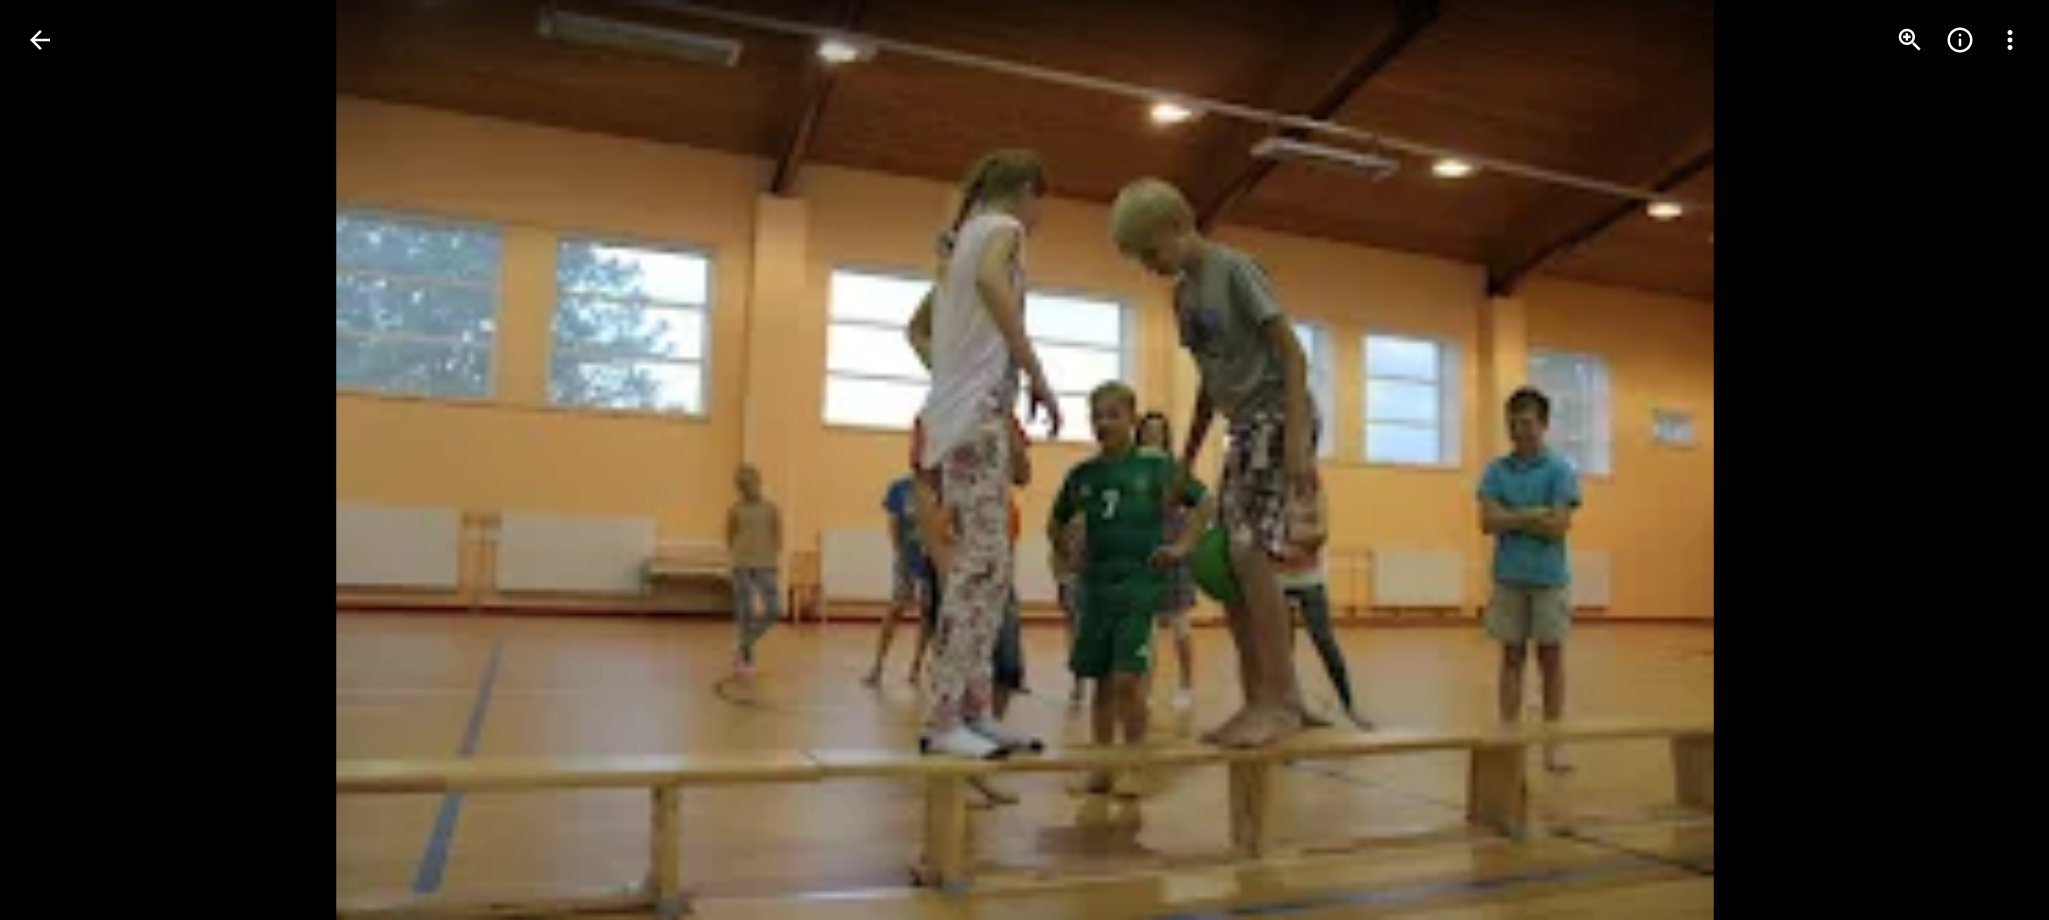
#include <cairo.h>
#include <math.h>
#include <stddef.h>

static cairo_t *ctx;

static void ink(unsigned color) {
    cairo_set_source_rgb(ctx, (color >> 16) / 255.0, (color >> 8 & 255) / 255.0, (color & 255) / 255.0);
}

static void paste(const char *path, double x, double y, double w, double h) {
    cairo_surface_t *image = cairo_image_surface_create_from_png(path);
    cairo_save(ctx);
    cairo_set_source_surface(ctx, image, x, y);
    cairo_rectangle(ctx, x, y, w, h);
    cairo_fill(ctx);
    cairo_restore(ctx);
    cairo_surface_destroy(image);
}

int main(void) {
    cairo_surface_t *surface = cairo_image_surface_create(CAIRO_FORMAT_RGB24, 2049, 920);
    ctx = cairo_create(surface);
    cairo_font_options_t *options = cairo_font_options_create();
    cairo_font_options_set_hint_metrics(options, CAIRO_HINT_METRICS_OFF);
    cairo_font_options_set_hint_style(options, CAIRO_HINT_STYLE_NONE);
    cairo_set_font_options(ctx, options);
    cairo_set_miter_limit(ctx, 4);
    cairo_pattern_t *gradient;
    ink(0x000000);
    cairo_paint(ctx);
    paste("pic5.png", 336, 0, 1378, 920);
    gradient = cairo_pattern_create_linear(1025, 0, 1025, 80);
    cairo_pattern_add_color_stop_rgba(gradient, 0, 0, 0, 0, 0.6);
    cairo_pattern_add_color_stop_rgba(gradient, 1, 0, 0, 0, 0);
    cairo_set_source(ctx, gradient);
    cairo_pattern_destroy(gradient);
    cairo_rectangle(ctx, 336, 0, 1378, 77);
    cairo_fill(ctx);
    paste("pic1.png", 30, 30, 20, 20);
    paste("pic2.png", 1898, 28, 23, 23);
    paste("pic3.png", 1947, 27, 26, 26);
    paste("pic4.png", 2007, 30, 6, 20);
    cairo_surface_write_to_png(surface, "screenshot.png");
    cairo_font_options_destroy(options);
    cairo_destroy(ctx);
    cairo_surface_destroy(surface);
    return 0;
}
